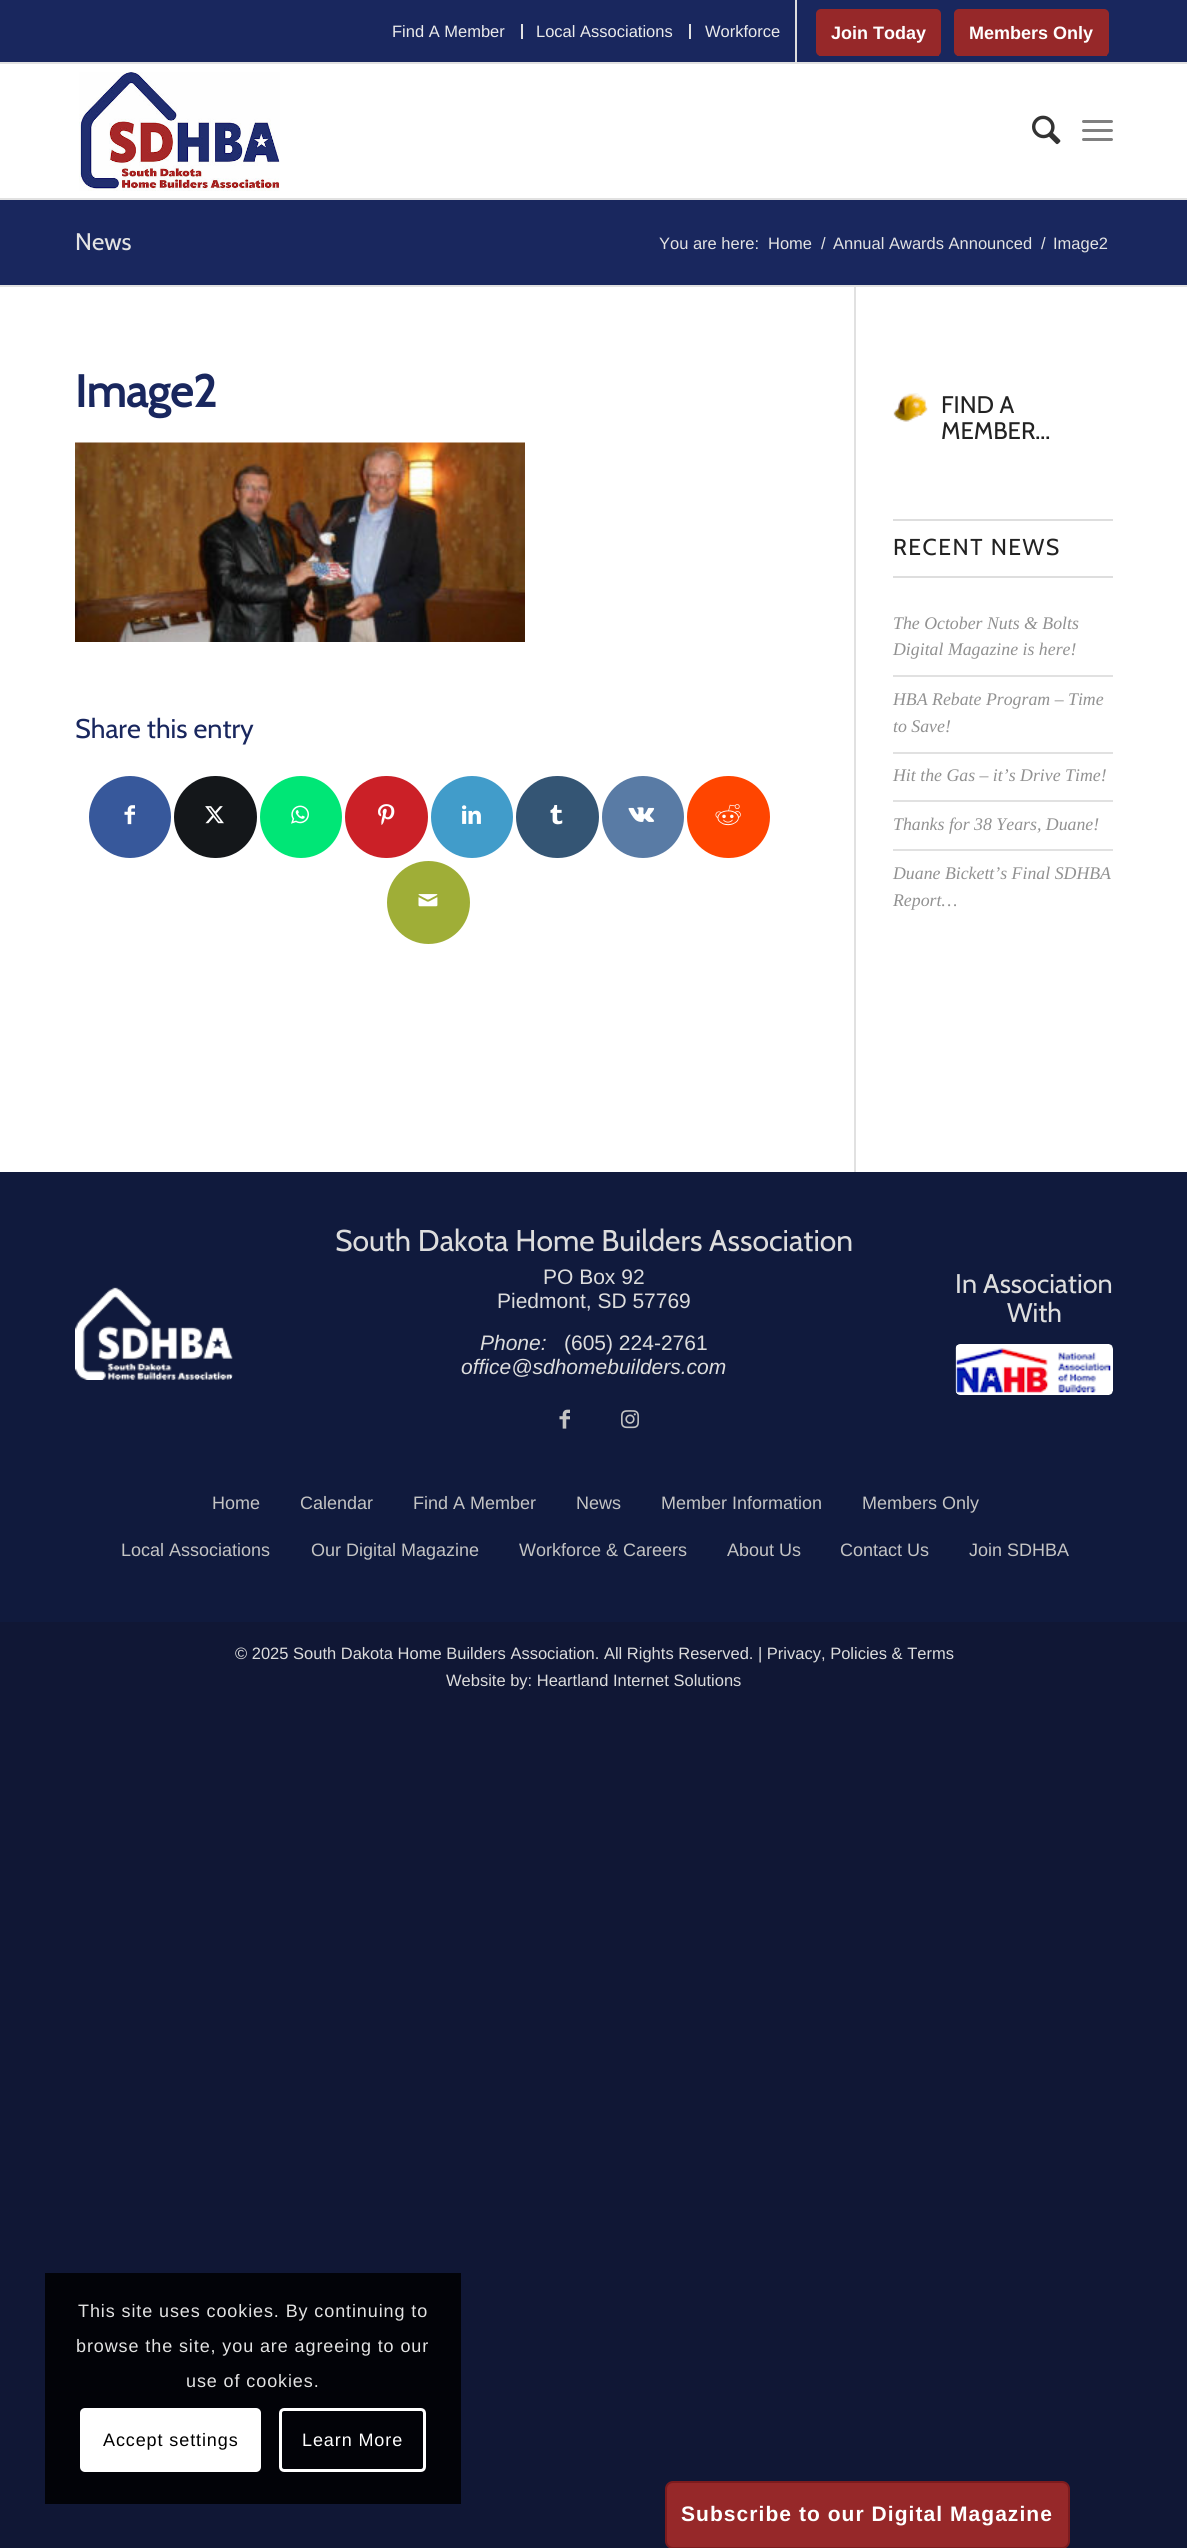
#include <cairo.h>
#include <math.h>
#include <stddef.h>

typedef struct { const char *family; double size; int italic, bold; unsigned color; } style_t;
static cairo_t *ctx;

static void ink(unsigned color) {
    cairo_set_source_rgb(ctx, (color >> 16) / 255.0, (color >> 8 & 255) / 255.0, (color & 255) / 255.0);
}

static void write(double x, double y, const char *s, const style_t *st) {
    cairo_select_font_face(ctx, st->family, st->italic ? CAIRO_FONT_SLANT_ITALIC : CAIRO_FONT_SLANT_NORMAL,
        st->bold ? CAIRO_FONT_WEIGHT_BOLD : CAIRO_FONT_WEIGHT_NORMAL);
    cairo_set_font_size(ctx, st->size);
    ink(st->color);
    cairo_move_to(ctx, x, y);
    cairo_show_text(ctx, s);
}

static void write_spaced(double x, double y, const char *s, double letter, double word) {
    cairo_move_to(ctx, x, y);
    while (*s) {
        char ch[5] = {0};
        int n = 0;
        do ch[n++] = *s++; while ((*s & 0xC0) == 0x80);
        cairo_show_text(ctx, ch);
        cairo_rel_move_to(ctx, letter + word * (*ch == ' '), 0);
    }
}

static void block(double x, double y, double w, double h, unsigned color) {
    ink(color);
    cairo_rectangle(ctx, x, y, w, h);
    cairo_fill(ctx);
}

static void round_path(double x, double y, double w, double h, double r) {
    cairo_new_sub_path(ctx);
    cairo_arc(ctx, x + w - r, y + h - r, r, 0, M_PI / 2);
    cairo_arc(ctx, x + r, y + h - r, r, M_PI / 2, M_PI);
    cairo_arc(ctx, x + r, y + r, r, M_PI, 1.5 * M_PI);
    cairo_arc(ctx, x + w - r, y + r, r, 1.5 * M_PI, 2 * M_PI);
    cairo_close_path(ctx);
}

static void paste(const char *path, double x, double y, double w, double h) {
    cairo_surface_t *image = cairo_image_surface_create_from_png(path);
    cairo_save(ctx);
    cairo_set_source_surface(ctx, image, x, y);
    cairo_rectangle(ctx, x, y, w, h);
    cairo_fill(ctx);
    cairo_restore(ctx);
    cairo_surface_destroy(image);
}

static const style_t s1 = {"Liberation Sans", 16.5, 0, 0, 0xebebeb};
static const style_t s2 = {"Liberation Sans", 18, 0, 1, 0xffffff};
static const style_t s3 = {"Cabin", 24, 0, 0, 0xe3e3e3};
static const style_t s4 = {"Liberation Sans", 16.5, 0, 0, 0xe3e3e3};
static const style_t s5 = {"Cabin", 45, 0, 1, 0x19275e};
static const style_t s6 = {"Cabin", 27, 0, 0, 0x19275e};
static const style_t s7 = {"Cabin", 24, 0, 0, 0x222222};
static const style_t s8 = {"Liberation Serif", 17.8, 1, 0, 0x919191};
static const style_t s9 = {"Cabin", 30, 0, 0, 0xdddddd};
static const style_t s10 = {"Liberation Sans", 21, 0, 0, 0xdddddd};
static const style_t s11 = {"Liberation Sans", 21, 1, 0, 0xdddddd};
static const style_t s12 = {"Cabin", 27, 0, 0, 0xdddddd};
static const style_t s13 = {"Liberation Sans", 18, 0, 0, 0xc4c4c4};
static const style_t s14 = {"Liberation Sans", 16.5, 0, 0, 0xdddddd};

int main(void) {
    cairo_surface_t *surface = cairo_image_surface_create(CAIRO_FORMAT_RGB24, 1187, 2548);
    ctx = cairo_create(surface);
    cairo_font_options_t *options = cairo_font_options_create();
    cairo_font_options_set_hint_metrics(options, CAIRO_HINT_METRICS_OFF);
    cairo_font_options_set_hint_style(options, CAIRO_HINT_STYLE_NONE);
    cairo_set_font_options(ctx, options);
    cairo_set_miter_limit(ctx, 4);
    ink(0x101735);
    cairo_paint(ctx);
    block(0, 64, 1187, 1108, 0xffffff);
    block(0, 0, 1187, 62, 0x19275e);
    block(0, 62, 1187, 2, 0xe1e1e1);
    block(521, 24, 2, 15, 0xe1e1e1);
    write(392, 37, "Find A Member", &s1);
    block(689, 24, 2, 15, 0xe1e1e1);
    write(536, 37, "Local Associations", &s1);
    write(705, 37, "Workforce", &s1);
    block(795, 0, 2, 62, 0xdddddd);
    ink(0x962829);
    round_path(816, 9, 125, 47, 5);
    cairo_fill(ctx);
    block(819, 55, 120, 1, 0x962829);
    write(831, 39, "Join Today", &s2);
    ink(0x962829);
    round_path(954, 9, 155, 47, 5);
    cairo_fill(ctx);
    block(957, 55, 150, 1, 0x962829);
    write(969, 39, "Members Only", &s2);
    block(0, 198, 1187, 2, 0xe1e1e1);
    paste("pic1.png", 79, 72, 201, 119);
    paste("pic2.png", 1032, 115, 29, 30);
    ink(0x808080);
    round_path(1082, 129, 31, 3, 1.5);
    cairo_fill(ctx);
    round_path(1082, 120, 31, 3, 1.5);
    cairo_fill(ctx);
    round_path(1082, 138, 31, 3, 1.5);
    cairo_fill(ctx);
    block(0, 200, 1187, 85, 0x19275e);
    write(75, 250, "News", &s3);
    write(659, 249, "You are here:", &s4);
    write(768, 249, "Home", &s4);
    write(821, 249, "/", &s4);
    write(833, 249, "Annual Awards Announced", &s4);
    write(1041, 249, "/", &s4);
    write(1053, 249, "Image2", &s4);
    block(0, 285, 1187, 2, 0xe1e1e1);
    block(854, 287, 2, 885, 0xe1e1e1);
    write(75, 407, "Image2", &s5);
    paste("pic3.png", 75, 442, 450, 200);
    write(75, 738, "Share this entry", &s6);
    ink(0x37589b);
    cairo_new_path(ctx);
    cairo_arc(ctx, 130, 817, 41, 0, 2 * M_PI);
    cairo_fill(ctx);
    paste("pic4.png", 124, 805, 11, 20);
    ink(0x14171a);
    round_path(174, 776, 83, 82, 41);
    cairo_fill(ctx);
    paste("pic5.png", 205, 806, 19, 18);
    ink(0x00e676);
    cairo_arc(ctx, 301, 817, 41, 0, 2 * M_PI);
    cairo_fill(ctx);
    paste("pic6.png", 291, 805, 18, 19);
    ink(0xcb2027);
    round_path(345, 776, 83, 82, 41);
    cairo_fill(ctx);
    paste("pic7.png", 378, 804, 17, 21);
    ink(0x419cca);
    cairo_arc(ctx, 472, 817, 41, 0, 2 * M_PI);
    cairo_fill(ctx);
    paste("pic8.png", 462, 805, 19, 19);
    ink(0x345574);
    round_path(516, 776, 83, 82, 41);
    cairo_fill(ctx);
    paste("pic9.png", 550, 805, 13, 20);
    ink(0x597ba5);
    cairo_arc(ctx, 643, 817, 41, 0, 2 * M_PI);
    cairo_fill(ctx);
    paste("pic10.png", 628, 807, 27, 15);
    ink(0xff4500);
    round_path(687, 776, 83, 82, 41);
    cairo_fill(ctx);
    paste("pic11.png", 715, 804, 26, 22);
    ink(0x9fae37);
    cairo_arc(ctx, 428.5, 902.5, 41.5, 0, 2 * M_PI);
    cairo_fill(ctx);
    paste("pic12.png", 418, 894, 20, 13);
    paste("pic13.png", 893, 393, 35, 29);
    write(941, 413, "FIND A", &s7);
    write(941, 439, "MEMBER...", &s7);
    block(893, 519, 220, 2, 0xdedede);
    block(893, 576, 220, 2, 0xdedede);
    cairo_set_font_size(ctx, 23);
    ink(0x222222);
    write_spaced(893, 555, "RECENT NEWS", 1.5, 0);
    write(893, 629, "The October Nuts & Bolts", &s8);
    write(893, 655, "Digital Magazine is here!", &s8);
    block(893, 675, 220, 2, 0xe1e1e1);
    write(893, 705, "HBA Rebate Program – Time", &s8);
    write(893, 732, "to Save!", &s8);
    block(893, 752, 220, 2, 0xe1e1e1);
    write(893, 781, "Hit the Gas – it’s Drive Time!", &s8);
    block(893, 800, 220, 2, 0xe1e1e1);
    write(893, 830, "Thanks for 38 Years, Duane!", &s8);
    block(893, 849, 220, 2, 0xe1e1e1);
    write(893, 879, "Duane Bickett’s Final SDHBA", &s8);
    write(893, 906, "Report…", &s8);
    block(0, 1172, 1187, 450, 0x101a3d);
    paste("pic14.png", 75, 1287, 158, 93);
    write(335, 1251, "South Dakota Home Builders Association", &s9);
    write(543, 1284, "PO Box 92", &s10);
    write(497, 1308, "Piedmont, SD 57769", &s10);
    write(480, 1350, "Phone:", &s11);
    write(564, 1350, "(605) 224-2761", &s10);
    write(461, 1374, "office@sdhomebuilders.com", &s11);
    paste("pic15.png", 559, 1409, 11, 20);
    paste("pic16.png", 621, 1410, 18, 19);
    write(955, 1293, "In Association", &s12);
    write(1007, 1322, "With", &s12);
    paste("pic17.png", 955, 1344, 158, 51);
    write(212, 1509, "Home", &s13);
    write(300, 1509, "Calendar", &s13);
    write(413, 1509, "Find A Member", &s13);
    write(576, 1509, "News", &s13);
    write(661, 1509, "Member Information", &s13);
    write(862, 1509, "Members Only", &s13);
    write(121, 1556, "Local Associations", &s13);
    write(311, 1556, "Our Digital Magazine", &s13);
    write(519, 1556, "Workforce & Careers", &s13);
    write(727, 1556, "About Us", &s13);
    write(840, 1556, "Contact Us", &s13);
    write(969, 1556, "Join SDHBA", &s13);
    write(235, 1659, "© 2025 South Dakota Home Builders Association. All Rights Reserved. | Privacy, Policies & Terms", &s14);
    write(446, 1686, "Website by: Heartland Internet Solutions", &s14);
    block(45, 2273, 416, 231, 0x020308);
    cairo_set_font_size(ctx, 18);
    ink(0xe3e3e3);
    write_spaced(78, 2317, "This site uses cookies. By continuing to", 0.9, 0);
    write_spaced(76, 2352, "browse the site, you are agreeing to our", 0.9, 0);
    write_spaced(186, 2387, "use of cookies.", 0.9, 0);
    ink(0xffffff);
    round_path(80, 2408, 181, 64, 5);
    cairo_fill(ctx);
    ink(0x000000);
    write_spaced(103, 2446, "Accept settings", 0.9, 0);
    round_path(280.5, 2409.5, 144, 61, 3.5);
    ink(0xffffff);
    cairo_set_line_width(ctx, 3);
    cairo_stroke(ctx);
    write_spaced(302, 2446, "Learn More", 0.9, 0);
    ink(0x962829);
    round_path(666, 2482, 403, 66, 7);
    cairo_fill_preserve(ctx);
    ink(0x7c1b1e);
    cairo_set_line_width(ctx, 2);
    cairo_stroke(ctx);
    cairo_select_font_face(ctx, "Liberation Sans", CAIRO_FONT_SLANT_NORMAL, CAIRO_FONT_WEIGHT_BOLD);
    cairo_set_font_size(ctx, 21);
    ink(0xffffff);
    write_spaced(681, 2521, "Subscribe to our Digital Magazine", 1.05, 0);
    cairo_surface_write_to_png(surface, "screenshot.png");
    cairo_font_options_destroy(options);
    cairo_destroy(ctx);
    cairo_surface_destroy(surface);
    return 0;
}
